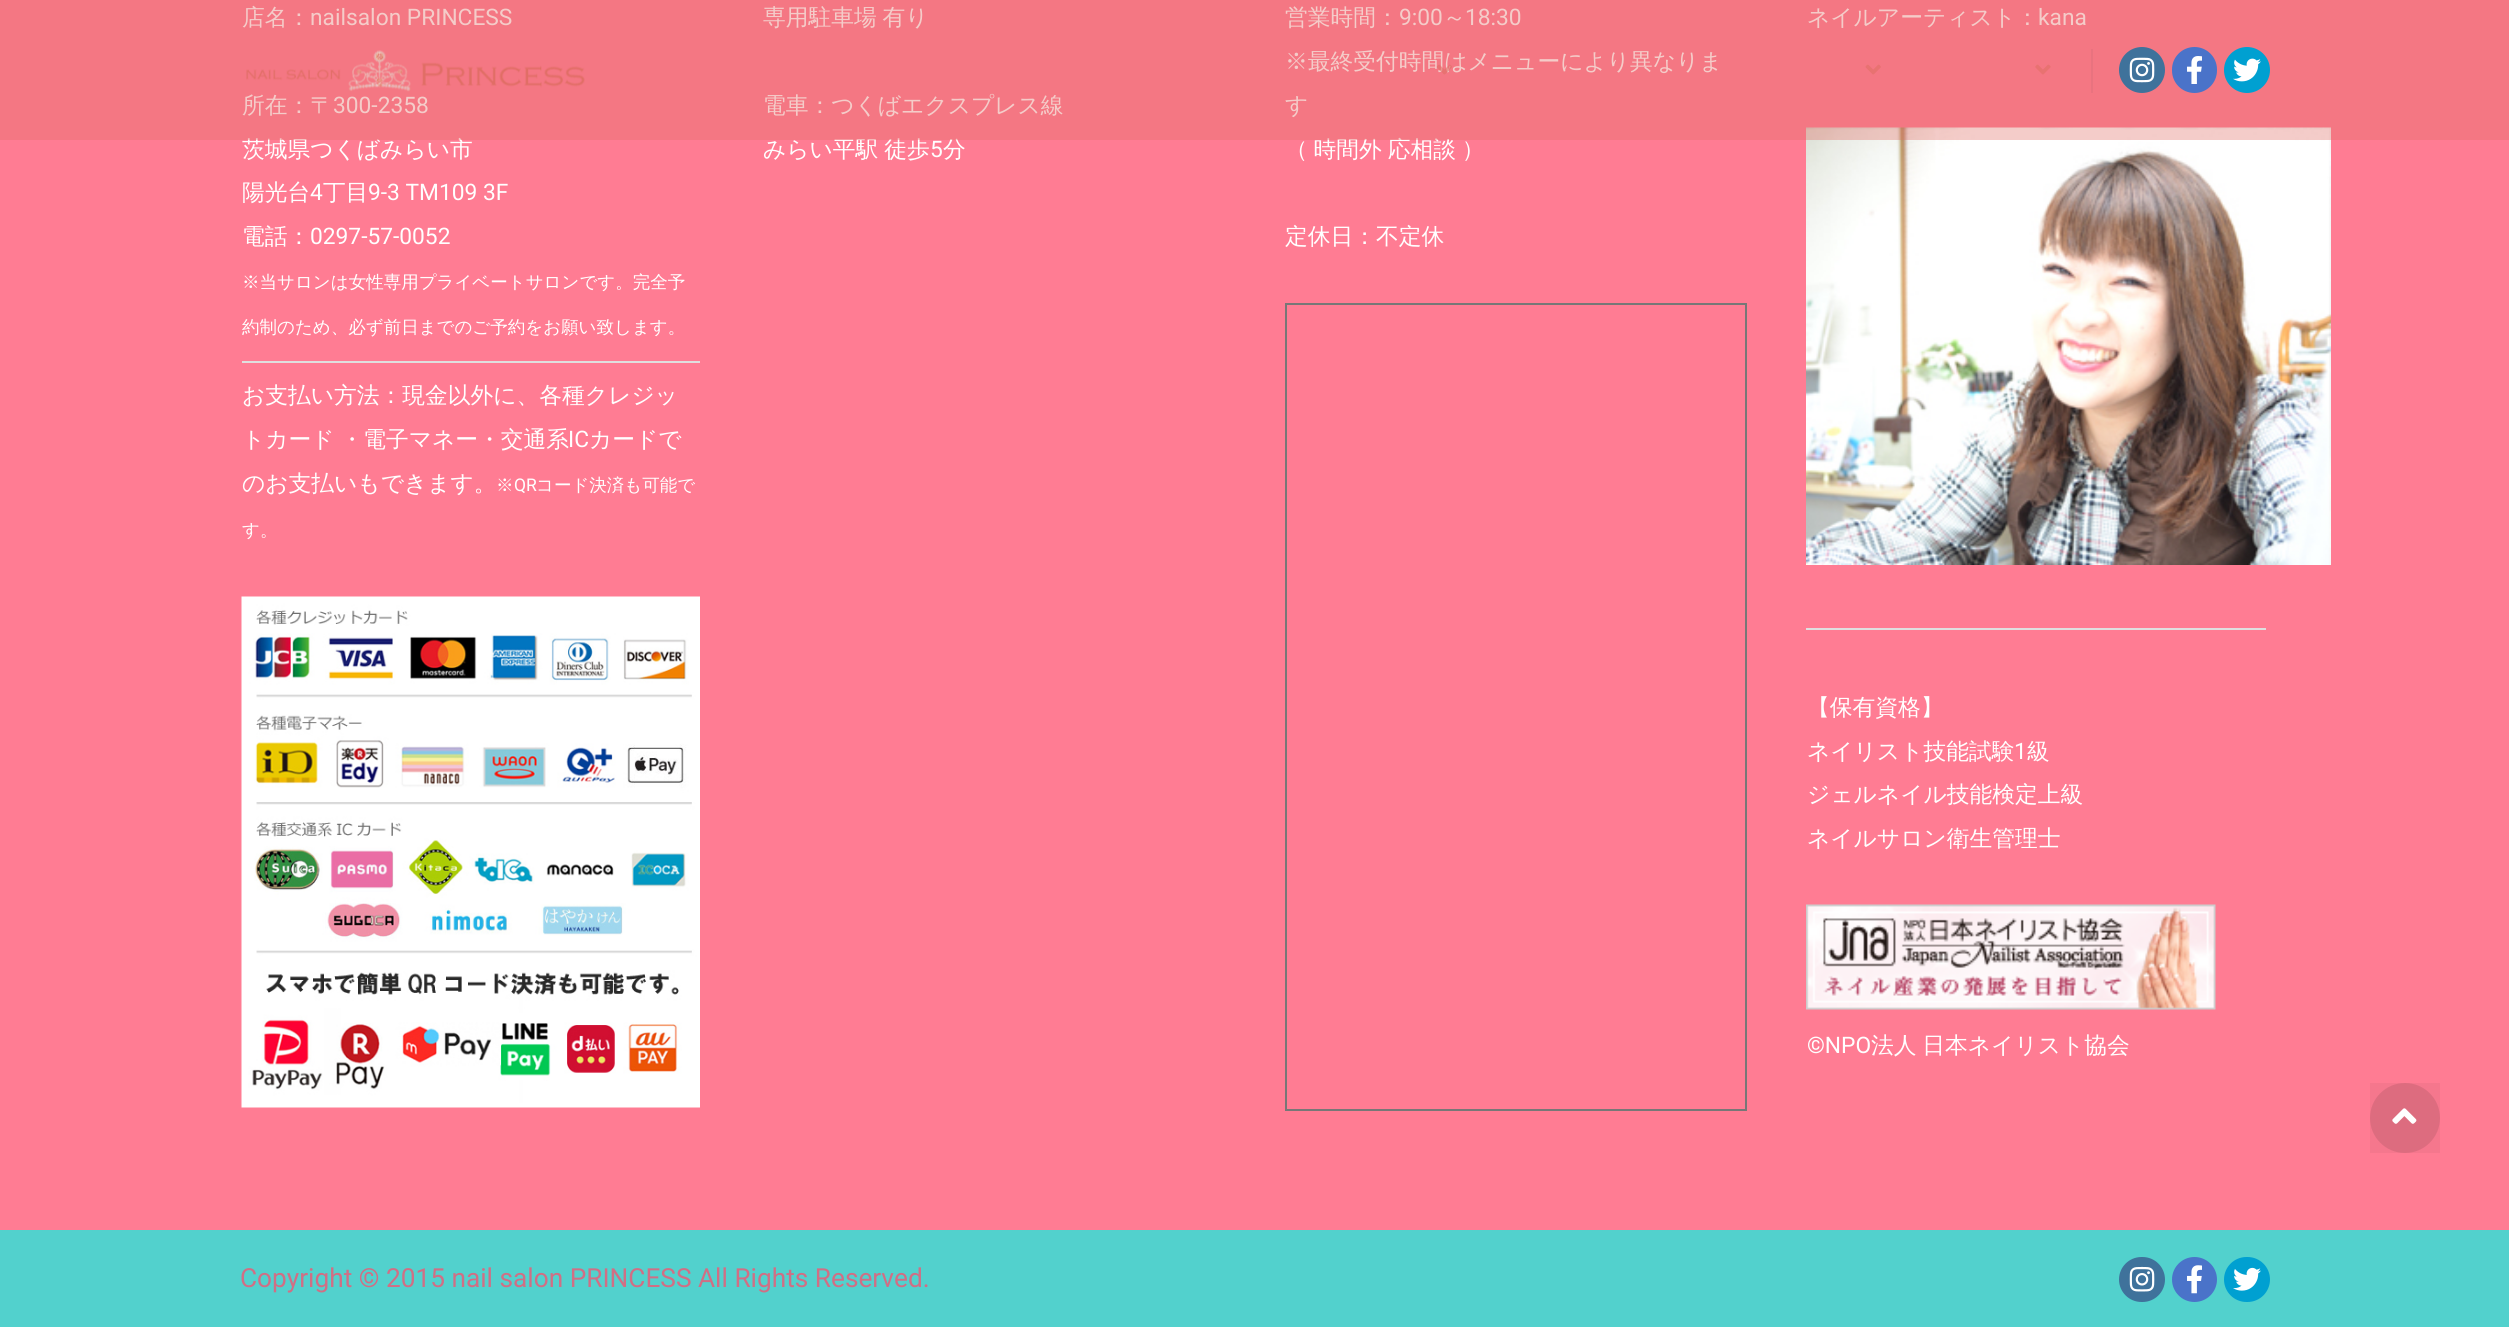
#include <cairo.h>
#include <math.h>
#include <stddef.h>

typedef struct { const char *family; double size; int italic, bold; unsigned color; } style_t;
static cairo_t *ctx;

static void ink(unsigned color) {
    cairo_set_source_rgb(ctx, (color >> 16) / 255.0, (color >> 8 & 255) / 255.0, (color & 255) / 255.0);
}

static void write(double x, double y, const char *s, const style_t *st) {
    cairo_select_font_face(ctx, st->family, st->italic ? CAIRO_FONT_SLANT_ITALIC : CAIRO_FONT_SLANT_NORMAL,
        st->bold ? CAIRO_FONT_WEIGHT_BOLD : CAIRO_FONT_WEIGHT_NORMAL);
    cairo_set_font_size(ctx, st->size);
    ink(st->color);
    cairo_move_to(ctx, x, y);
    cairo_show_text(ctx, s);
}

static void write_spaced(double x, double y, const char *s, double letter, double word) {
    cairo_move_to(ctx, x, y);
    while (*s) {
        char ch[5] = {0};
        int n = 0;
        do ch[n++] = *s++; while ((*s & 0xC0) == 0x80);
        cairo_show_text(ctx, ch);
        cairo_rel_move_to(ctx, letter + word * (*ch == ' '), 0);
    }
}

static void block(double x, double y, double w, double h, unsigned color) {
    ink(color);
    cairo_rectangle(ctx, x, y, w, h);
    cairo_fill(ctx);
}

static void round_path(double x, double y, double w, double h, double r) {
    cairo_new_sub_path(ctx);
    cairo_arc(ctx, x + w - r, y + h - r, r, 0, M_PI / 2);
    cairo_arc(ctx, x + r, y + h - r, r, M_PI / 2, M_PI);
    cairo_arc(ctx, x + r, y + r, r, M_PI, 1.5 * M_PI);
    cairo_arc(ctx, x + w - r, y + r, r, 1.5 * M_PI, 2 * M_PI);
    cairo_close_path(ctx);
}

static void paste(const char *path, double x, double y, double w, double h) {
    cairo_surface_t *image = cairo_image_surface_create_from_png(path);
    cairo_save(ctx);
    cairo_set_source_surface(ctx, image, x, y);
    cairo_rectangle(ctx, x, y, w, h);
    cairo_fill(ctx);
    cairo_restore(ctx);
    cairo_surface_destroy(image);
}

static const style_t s1 = {"WenQuanYi Zen Hei Medium", 22.75, 0, 0, 0xffffff};
static const style_t s2 = {"Roboto", 22.75, 0, 0, 0xffffff};
static const style_t s3 = {"WenQuanYi Zen Hei Medium", 17.5, 0, 0, 0xffffff};
static const style_t s4 = {"Roboto", 17.5, 0, 0, 0xffffff};
static const style_t s5 = {"Roboto", 26.25, 0, 0, 0xd06f85};

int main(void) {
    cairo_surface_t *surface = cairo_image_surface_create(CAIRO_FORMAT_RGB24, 2509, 1327);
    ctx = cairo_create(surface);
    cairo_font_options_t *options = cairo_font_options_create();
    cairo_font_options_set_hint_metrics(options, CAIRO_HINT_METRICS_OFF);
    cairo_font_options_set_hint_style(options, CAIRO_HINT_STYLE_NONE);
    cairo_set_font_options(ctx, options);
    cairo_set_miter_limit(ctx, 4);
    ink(0xff7c93);
    cairo_paint(ctx);
    write(242, 25, "店名：", &s1);
    write(310, 25, "nailsalon PRINCESS", &s2);
    write(242, 113, "所在：〒", &s1);
    write(333, 113, "300-2358", &s2);
    write(242, 157, "茨城県つくばみらい市", &s1);
    write_spaced(763, 25, "専用駐車場 有り", 0, -1);
    write(763, 113, "電車：つくばエクスプレス線", &s1);
    write_spaced(763, 157, "みらい平駅 徒歩", 0, -1);
    write(943, 157, "分", &s1);
    write(1285, 25, "営業時間：", &s1);
    write(1399, 25, "9:00", &s2);
    write(1443, 25, "～", &s1);
    write(1465, 25, "18:30", &s2);
    write(1285, 69, "※最終受付時間はメニューにより異なりま", &s1);
    write(1285, 113, "す", &s1);
    write_spaced(1285, 157, "（ 時間外 応相談 ）", 0, -1);
    write(1807, 25, "ネイルアーティスト：", &s1);
    write(2038, 25, "kana", &s2);
    paste("pic9.png", 1806, 127, 525, 438);
    cairo_set_source_rgba(ctx, 0.878, 0.431, 0.396, 0.35);
    cairo_rectangle(ctx, 0, 0, 2509, 140);
    cairo_fill(ctx);
    paste("pic1.png", 246, 50, 339, 42);
    paste("pic2.png", 1436, 64, 16, 11);
    paste("pic3.png", 1865, 64, 16, 11);
    paste("pic4.png", 2035, 64, 16, 11);
    block(2091, 49, 2, 44, 0xe9737f);
    ink(0x3f729b);
    cairo_arc(ctx, 2142, 70, 23, 0, 2 * M_PI);
    cairo_fill(ctx);
    paste("pic5.png", 2129, 57, 26, 26);
    ink(0x4a73c9);
    round_path(2172, 47, 45, 46, 22.5);
    cairo_fill(ctx);
    paste("pic6.png", 2187, 56, 15, 28);
    ink(0x00a0d1);
    cairo_arc(ctx, 2247, 70, 23, 0, 2 * M_PI);
    cairo_fill(ctx);
    paste("pic7.png", 2233, 58, 28, 24);
    write(242, 200, "陽光台", &s1);
    write(310, 200, "4", &s2);
    write(323, 200, "丁目", &s1);
    write(368, 200, "9-3 TM109 3F", &s2);
    write(242, 244, "電話：", &s1);
    write(310, 244, "0297-57-0052", &s2);
    write(242, 288, "※当サロンは女性専用プライベートサロンです。完全予", &s3);
    write(242, 333, "約制のため、必ず前日までのご予約をお願い致します。", &s3);
    block(242, 361, 458, 2, 0xdfdfdf);
    write(242, 403, "お支払い方法：現金以外に、各種クレジッ", &s1);
    write_spaced(242, 447, "トカード ・電子マネー・交通系", 0, -1);
    write(568, 447, "IC", &s2);
    write(589, 447, "カードで", &s1);
    write(242, 491, "のお支払いもできます。", &s1);
    write(496, 491, "※", &s3);
    write(514, 491, "QR", &s4);
    write(536, 491, "コード決済も可能で", &s3);
    write(242, 536, "す。", &s3);
    paste("pic8.png", 241, 596, 459, 512);
    write(930, 157, "5", &s2);
    write(1285, 244, "定休日：不定休", &s1);
    cairo_rectangle(ctx, 1286, 304, 460, 806);
    ink(0x777777);
    cairo_stroke(ctx);
    block(1806, 628, 460, 2, 0xdfdfdf);
    write(1807, 715, "【保有資格】", &s1);
    write(1807, 759, "ネイリスト技能試験", &s1);
    write(2014, 759, "1", &s2);
    write(2027, 759, "級", &s1);
    write(1807, 802, "ジェルネイル技能検定上級", &s1);
    write(1807, 846, "ネイルサロン衛生管理士", &s1);
    paste("pic10.png", 1806, 904, 410, 106);
    write(1807, 1053, "©NPO", &s2);
    cairo_select_font_face(ctx, "WenQuanYi Zen Hei Medium", CAIRO_FONT_SLANT_NORMAL, CAIRO_FONT_WEIGHT_NORMAL);
    write_spaced(1871, 1053, "法人 日本ネイリスト協会", 0, -1);
    block(0, 1230, 2509, 97, 0x52d1cd);
    write(240, 1287, "Copyright © 2015 nail salon PRINCESS All Rights Reserved.", &s5);
    ink(0x3f729b);
    round_path(2119, 1257, 46, 45, 22.5);
    cairo_fill(ctx);
    paste("pic11.png", 2129, 1266, 26, 26);
    ink(0x4a73c9);
    cairo_arc(ctx, 2194.5, 1279.5, 22.5, 0, 2 * M_PI);
    cairo_fill(ctx);
    paste("pic12.png", 2187, 1265, 15, 29);
    ink(0x00a0d1);
    round_path(2224, 1257, 46, 45, 22.5);
    cairo_fill(ctx);
    paste("pic13.png", 2233, 1267, 28, 24);
    ink(0xe67084);
    cairo_arc(ctx, 2405, 1118, 35, 0, 2 * M_PI);
    cairo_fill(ctx);
    cairo_set_source_rgba(ctx, 0, 0, 0, 0.04);
    cairo_rectangle(ctx, 2370, 1083, 70, 70);
    cairo_fill(ctx);
    paste("pic14.png", 2392, 1108, 25, 16);
    cairo_surface_write_to_png(surface, "screenshot.png");
    cairo_font_options_destroy(options);
    cairo_destroy(ctx);
    cairo_surface_destroy(surface);
    return 0;
}
